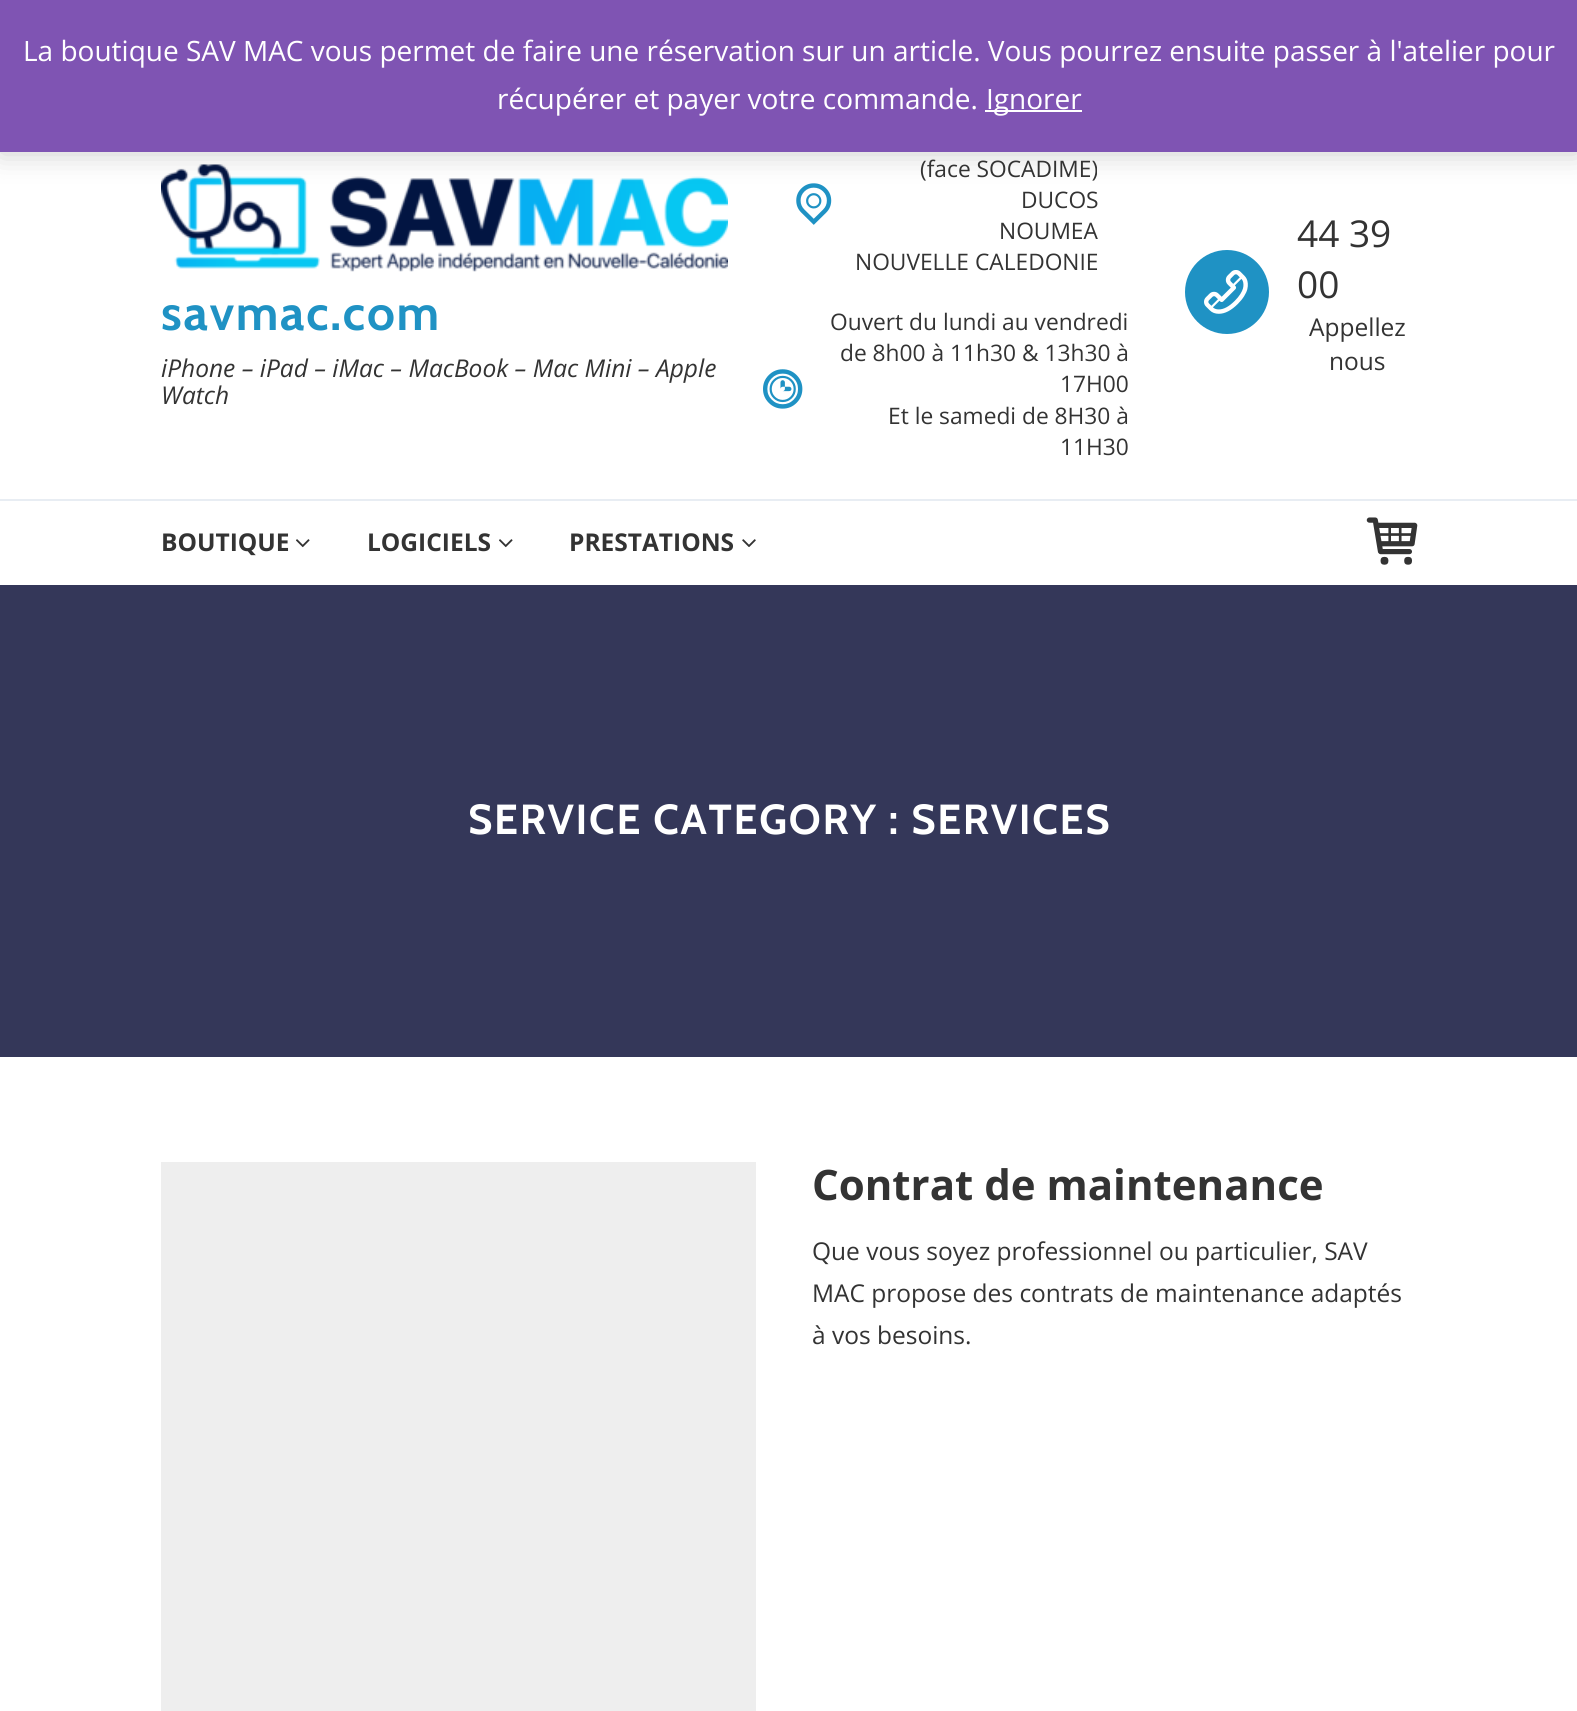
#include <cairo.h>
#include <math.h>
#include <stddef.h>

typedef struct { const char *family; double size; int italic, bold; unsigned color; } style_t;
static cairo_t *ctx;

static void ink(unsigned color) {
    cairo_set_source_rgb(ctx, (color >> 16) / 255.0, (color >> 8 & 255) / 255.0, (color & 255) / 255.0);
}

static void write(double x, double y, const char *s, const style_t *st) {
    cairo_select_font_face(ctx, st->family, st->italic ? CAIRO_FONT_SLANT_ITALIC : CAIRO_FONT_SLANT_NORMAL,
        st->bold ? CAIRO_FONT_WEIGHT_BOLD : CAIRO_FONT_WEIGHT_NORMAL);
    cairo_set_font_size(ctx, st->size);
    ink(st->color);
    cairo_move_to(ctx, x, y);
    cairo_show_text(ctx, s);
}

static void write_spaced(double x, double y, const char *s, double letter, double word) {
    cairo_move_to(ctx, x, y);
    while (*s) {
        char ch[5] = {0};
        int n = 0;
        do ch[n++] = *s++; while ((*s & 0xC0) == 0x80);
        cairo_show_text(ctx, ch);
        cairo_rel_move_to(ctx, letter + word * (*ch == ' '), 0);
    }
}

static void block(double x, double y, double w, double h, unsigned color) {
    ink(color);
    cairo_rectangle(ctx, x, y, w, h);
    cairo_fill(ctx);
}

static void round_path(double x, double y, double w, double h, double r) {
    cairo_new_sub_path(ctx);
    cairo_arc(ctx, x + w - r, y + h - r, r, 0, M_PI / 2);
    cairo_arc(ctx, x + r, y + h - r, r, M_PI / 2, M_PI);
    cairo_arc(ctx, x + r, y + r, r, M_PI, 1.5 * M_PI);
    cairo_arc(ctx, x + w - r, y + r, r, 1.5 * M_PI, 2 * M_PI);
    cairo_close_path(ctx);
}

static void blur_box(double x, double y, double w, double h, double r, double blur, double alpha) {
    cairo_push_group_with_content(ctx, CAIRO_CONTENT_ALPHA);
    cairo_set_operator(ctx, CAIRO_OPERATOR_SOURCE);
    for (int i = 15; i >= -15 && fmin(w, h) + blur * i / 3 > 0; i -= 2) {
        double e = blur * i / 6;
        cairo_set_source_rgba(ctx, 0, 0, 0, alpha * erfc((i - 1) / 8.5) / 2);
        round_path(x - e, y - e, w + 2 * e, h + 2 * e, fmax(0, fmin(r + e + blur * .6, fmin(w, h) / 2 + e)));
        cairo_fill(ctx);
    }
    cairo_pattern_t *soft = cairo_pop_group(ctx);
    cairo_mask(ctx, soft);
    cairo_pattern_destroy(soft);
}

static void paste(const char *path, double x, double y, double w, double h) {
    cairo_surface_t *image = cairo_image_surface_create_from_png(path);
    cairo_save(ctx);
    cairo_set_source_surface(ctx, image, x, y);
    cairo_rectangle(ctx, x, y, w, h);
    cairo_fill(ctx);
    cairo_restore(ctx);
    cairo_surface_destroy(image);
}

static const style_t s1 = {"Open Sans", 28, 0, 0, 0xffffff};
static const style_t s2 = {"Open Sans", 24.5, 1, 0, 0x333333};
static const style_t s3 = {"Open Sans", 22.75, 0, 0, 0x333333};
static const style_t s4 = {"Open Sans", 37, 0, 0, 0x333333};
static const style_t s5 = {"Open Sans", 24.5, 0, 0, 0x333333};
static const style_t s6 = {"Open Sans", 24.5, 0, 1, 0x333333};
static const style_t s7 = {"Open Sans", 42, 0, 1, 0x333333};

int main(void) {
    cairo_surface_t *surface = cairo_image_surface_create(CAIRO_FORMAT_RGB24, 1577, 1711);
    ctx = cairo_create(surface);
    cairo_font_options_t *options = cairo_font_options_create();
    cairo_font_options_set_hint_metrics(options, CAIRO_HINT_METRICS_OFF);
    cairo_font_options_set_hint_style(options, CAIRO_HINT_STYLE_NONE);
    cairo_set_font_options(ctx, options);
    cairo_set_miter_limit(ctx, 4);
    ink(0xffffff);
    cairo_paint(ctx);
    paste("pic1.png", 161, 164, 567, 108);
    paste("pic2.png", 796, 183, 36, 42);
    ink(0x000000);
    blur_box(0, 2, 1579, 152, 0, 14, 0.2);
    block(0, 0, 1577, 152, 0x7f54b3);
    write(23, 61, "La boutique SAV MAC vous permet de faire une réservation sur un article. Vous pourrez ensuite passer à l'atelier pour", &s1);
    write(497, 109, "récupérer et payer votre commande.", &s1);
    block(985, 110, 97, 2, 0xffffff);
    write(986, 109, "Ignorer", &s1);
    cairo_select_font_face(ctx, "Cabin", CAIRO_FONT_SLANT_NORMAL, CAIRO_FONT_WEIGHT_BOLD);
    cairo_set_font_size(ctx, 49);
    ink(0x1f92c4);
    write_spaced(161, 330, "savmac.com", 1.75, 0);
    write(161, 377, "iPhone – iPad – iMac – MacBook – Mac Mini – Apple", &s2);
    write(161, 404, "Watch", &s2);
    write(920, 177, "(face SOCADIME)", &s3);
    write(1021, 208, "DUCOS", &s3);
    write(999, 239, "NOUMEA", &s3);
    write(855, 270, "NOUVELLE CALEDONIE", &s3);
    paste("pic3.png", 763, 369, 40, 40);
    write(830, 330, "Ouvert du lundi au vendredi", &s3);
    write(840, 361, "de 8h00 à 11h30 & 13h30 à", &s3);
    write(1060, 392, "17H00", &s3);
    write(888, 424, "Et le samedi de 8H30 à", &s3);
    write(1060, 455, "11H30", &s3);
    ink(0x1f92c4);
    cairo_new_path(ctx);
    cairo_arc(ctx, 1227, 292, 42, 0, 2 * M_PI);
    cairo_fill(ctx);
    paste("pic4.png", 1204, 270, 44, 44);
    write(1297, 247, "44 39", &s4);
    write(1297, 298, "00", &s4);
    write(1309, 336, "Appellez", &s5);
    write(1329, 370, "nous", &s5);
    block(0, 499, 1577, 2, 0xe8edf3);
    write(161, 551, "BOUTIQUE", &s6);
    paste("pic5.png", 296, 539, 14, 9);
    write(367, 551, "LOGICIELS", &s6);
    paste("pic5.png", 499, 539, 14, 9);
    write(569, 551, "PRESTATIONS", &s6);
    paste("pic6.png", 742, 539, 14, 8);
    paste("pic7.png", 1366, 517, 52, 48);
    block(0, 585, 1577, 472, 0x343759);
    cairo_select_font_face(ctx, "Cabin", CAIRO_FONT_SLANT_NORMAL, CAIRO_FONT_WEIGHT_BOLD);
    cairo_set_font_size(ctx, 42);
    ink(0xffffff);
    write_spaced(468, 834, "SERVICE CATEGORY : SERVICES", 1.75, 0);
    block(161, 1162, 595, 549, 0xeeeeee);
    write(812, 1200, "Contrat de maintenance", &s7);
    write(812, 1260, "Que vous soyez professionnel ou particulier, SAV", &s5);
    write(812, 1302, "MAC propose des contrats de maintenance adaptés", &s5);
    write(812, 1344, "à vos besoins.", &s5);
    cairo_surface_write_to_png(surface, "screenshot.png");
    cairo_font_options_destroy(options);
    cairo_destroy(ctx);
    cairo_surface_destroy(surface);
    return 0;
}
